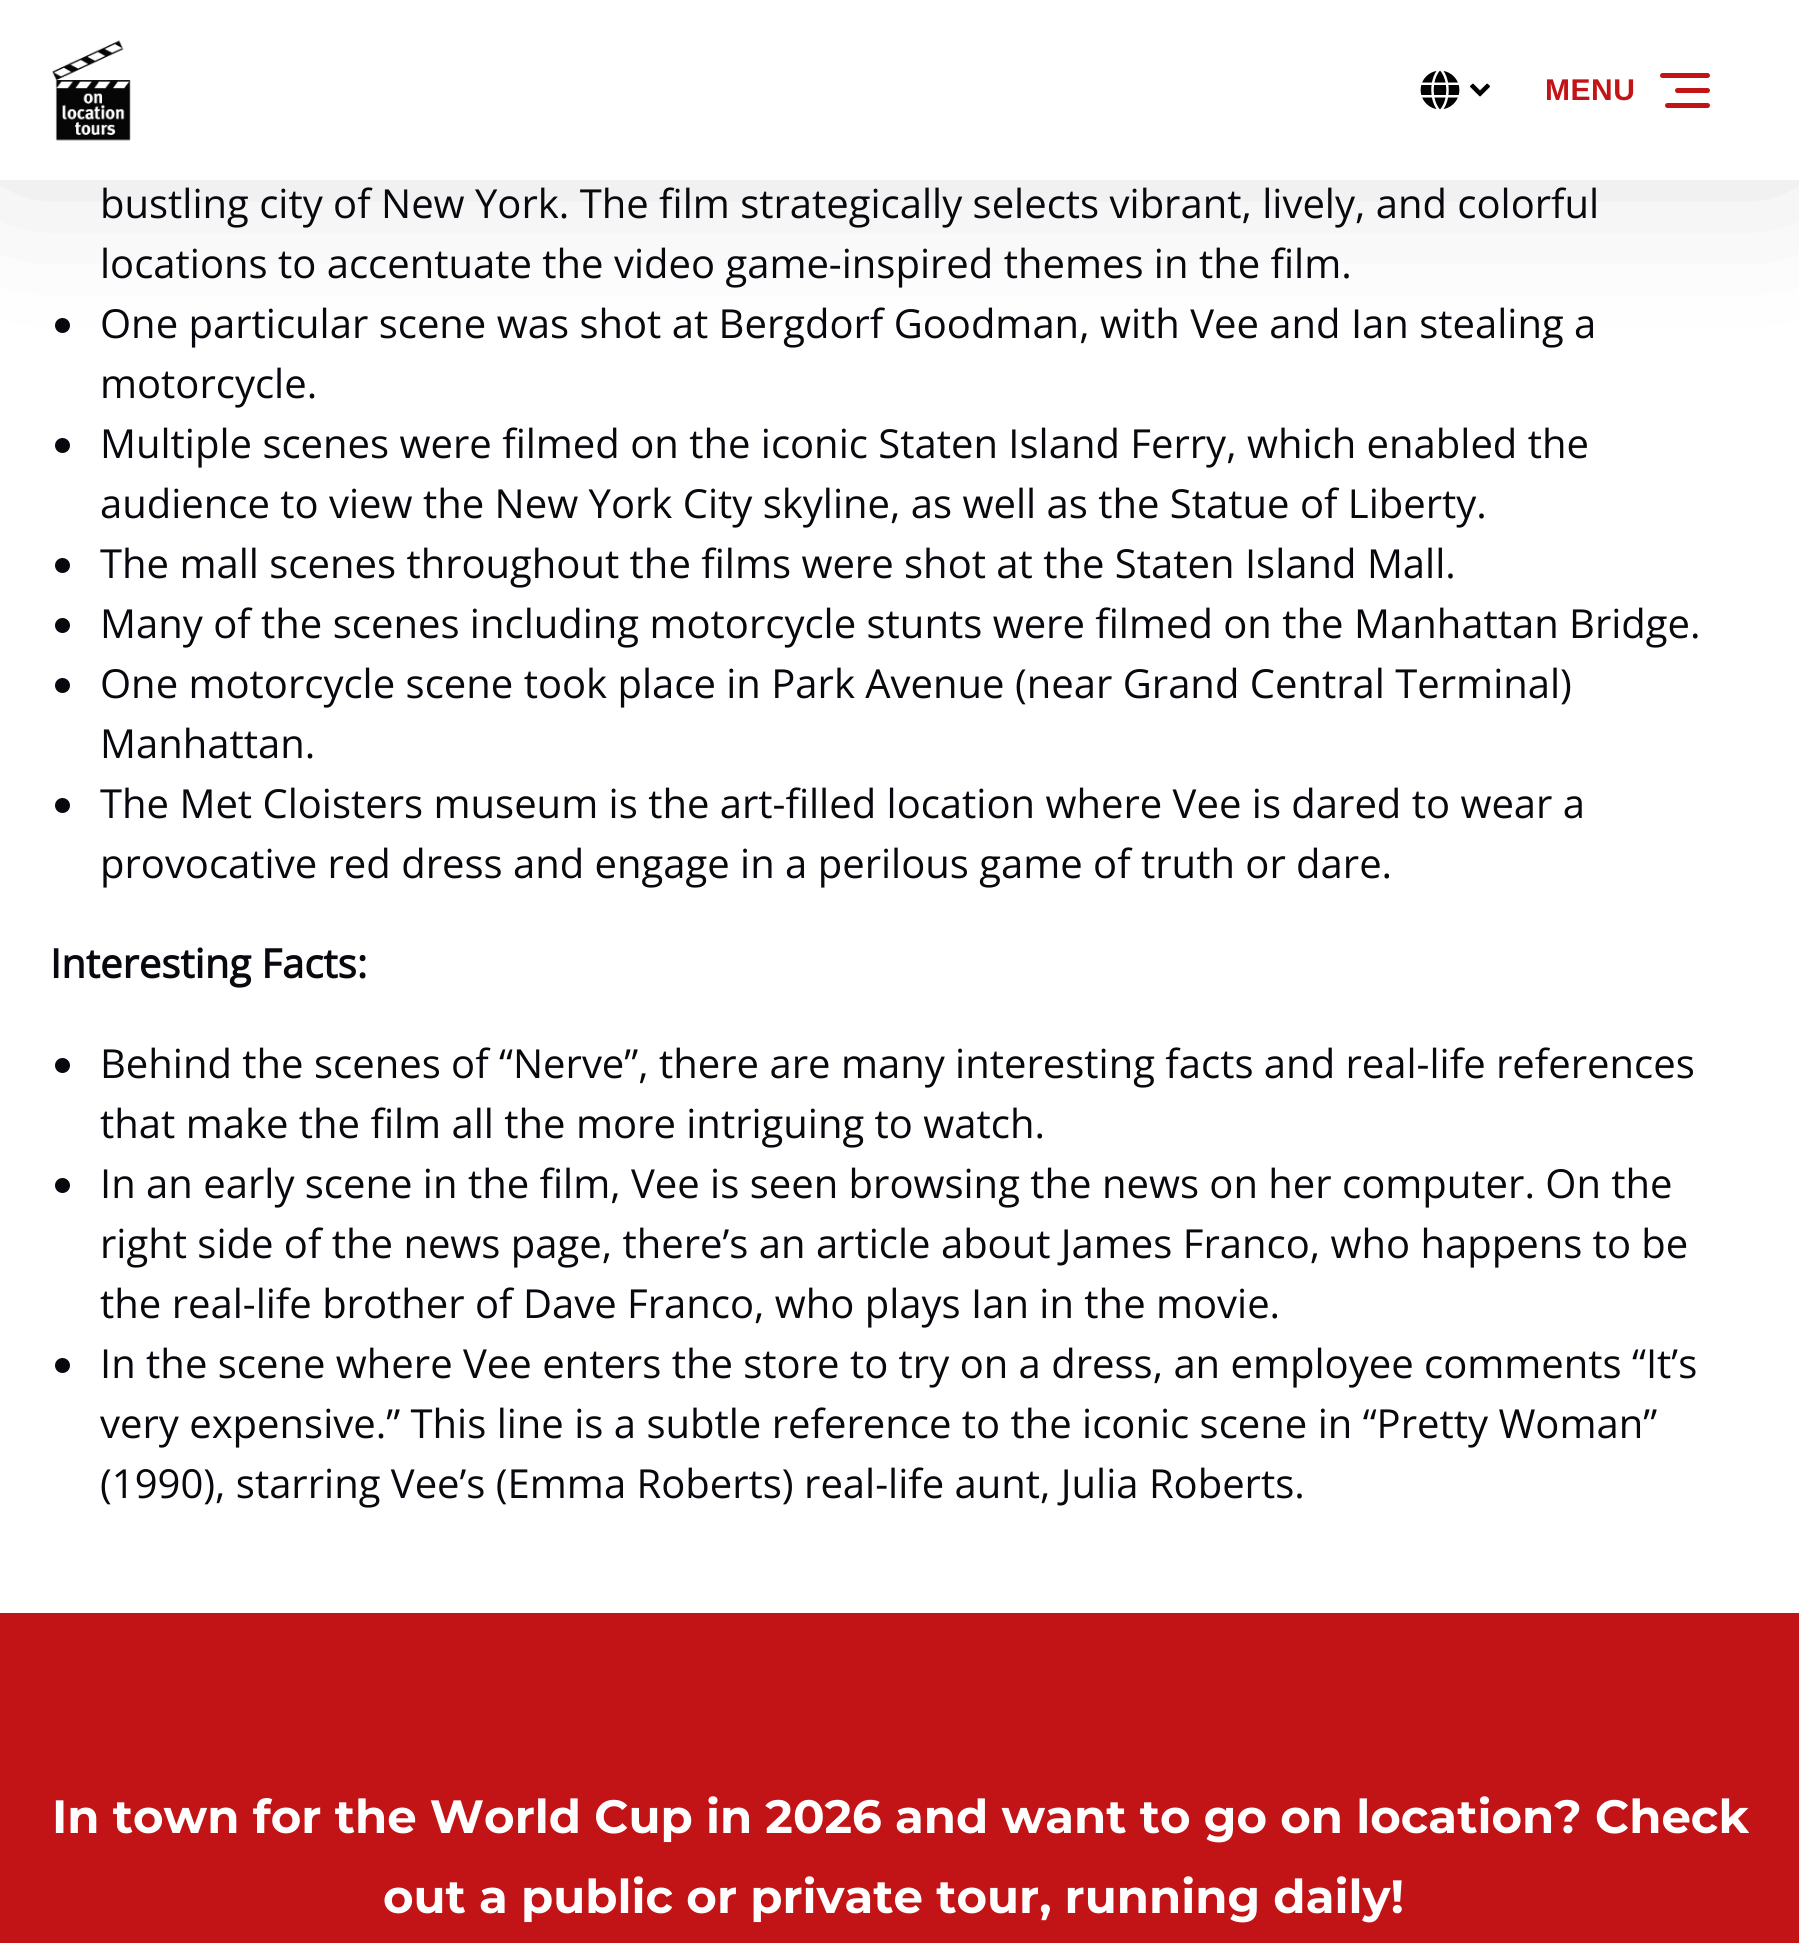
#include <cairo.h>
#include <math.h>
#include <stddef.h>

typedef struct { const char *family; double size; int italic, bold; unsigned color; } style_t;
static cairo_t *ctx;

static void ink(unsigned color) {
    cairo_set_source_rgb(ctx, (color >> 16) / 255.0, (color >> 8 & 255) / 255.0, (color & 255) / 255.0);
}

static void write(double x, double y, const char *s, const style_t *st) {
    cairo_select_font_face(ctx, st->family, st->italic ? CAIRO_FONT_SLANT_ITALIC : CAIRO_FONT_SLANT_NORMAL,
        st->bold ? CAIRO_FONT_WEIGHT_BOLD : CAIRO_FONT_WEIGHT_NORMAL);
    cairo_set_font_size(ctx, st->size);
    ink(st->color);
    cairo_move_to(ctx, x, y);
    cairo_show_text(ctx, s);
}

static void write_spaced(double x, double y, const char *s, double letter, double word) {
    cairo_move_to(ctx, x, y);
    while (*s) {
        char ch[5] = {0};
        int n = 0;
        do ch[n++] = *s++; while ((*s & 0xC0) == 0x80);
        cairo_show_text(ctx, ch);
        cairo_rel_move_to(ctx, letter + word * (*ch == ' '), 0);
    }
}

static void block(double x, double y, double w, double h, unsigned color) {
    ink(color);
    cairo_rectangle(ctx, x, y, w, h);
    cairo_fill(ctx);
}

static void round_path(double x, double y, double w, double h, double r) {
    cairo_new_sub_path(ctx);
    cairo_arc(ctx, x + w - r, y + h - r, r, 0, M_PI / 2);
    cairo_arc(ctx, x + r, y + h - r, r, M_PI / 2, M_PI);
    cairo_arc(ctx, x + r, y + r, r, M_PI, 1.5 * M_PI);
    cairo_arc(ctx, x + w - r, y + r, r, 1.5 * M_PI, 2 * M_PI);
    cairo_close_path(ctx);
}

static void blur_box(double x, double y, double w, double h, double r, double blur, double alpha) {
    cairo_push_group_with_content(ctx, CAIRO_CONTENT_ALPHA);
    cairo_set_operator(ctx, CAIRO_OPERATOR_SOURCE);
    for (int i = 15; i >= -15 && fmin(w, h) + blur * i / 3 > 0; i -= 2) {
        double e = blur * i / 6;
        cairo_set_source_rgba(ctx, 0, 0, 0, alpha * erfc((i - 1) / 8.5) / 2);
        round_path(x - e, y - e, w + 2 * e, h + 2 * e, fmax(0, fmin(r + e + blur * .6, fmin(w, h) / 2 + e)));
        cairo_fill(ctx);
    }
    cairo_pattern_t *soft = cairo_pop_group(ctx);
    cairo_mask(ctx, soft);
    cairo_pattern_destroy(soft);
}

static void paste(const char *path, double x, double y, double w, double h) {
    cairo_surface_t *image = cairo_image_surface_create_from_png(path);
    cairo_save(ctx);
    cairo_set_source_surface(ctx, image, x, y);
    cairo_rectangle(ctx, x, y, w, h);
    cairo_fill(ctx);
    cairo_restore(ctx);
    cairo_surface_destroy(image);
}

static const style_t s1 = {"Open Sans", 40, 0, 0, 0x08090e};
static const style_t s2 = {"Open Sans", 40, 0, 1, 0x08090e};
static const style_t s3 = {"Montserrat Thin", 46.65, 0, 0, 0xffffff};

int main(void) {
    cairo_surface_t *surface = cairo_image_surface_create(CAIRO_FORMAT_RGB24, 1799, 1943);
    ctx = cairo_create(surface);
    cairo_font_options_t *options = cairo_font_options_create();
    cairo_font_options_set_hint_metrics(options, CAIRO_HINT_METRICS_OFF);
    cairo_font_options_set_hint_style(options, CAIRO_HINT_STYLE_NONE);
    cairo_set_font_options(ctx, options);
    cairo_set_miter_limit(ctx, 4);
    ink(0xffffff);
    cairo_paint(ctx);
    ink(0x08090e);
    cairo_arc(ctx, 62.5, 325.5, 7.5, 0, 2 * M_PI);
    cairo_fill(ctx);
    ink(0x08090e);
    blur_box(0, -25, 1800, 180, 0, 94, 0.15);
    block(0, 0, 1799, 180, 0xffffff);
    paste("pic1.png", 52, 40, 79, 101);
    paste("pic2.png", 1420, 70, 40, 40);
    paste("pic3.png", 1470, 83, 20, 14);
    cairo_select_font_face(ctx, "Liberation Sans", CAIRO_FONT_SLANT_NORMAL, CAIRO_FONT_WEIGHT_BOLD);
    cairo_set_font_size(ctx, 30);
    ink(0xc21416);
    write_spaced(1545, 100, "MENU", 0.5, 0);
    round_path(1675, 88, 35, 5, 2.5);
    cairo_fill(ctx);
    round_path(1660, 73, 50, 5, 2.5);
    cairo_fill(ctx);
    round_path(1665, 103, 45, 5, 2.5);
    cairo_fill(ctx);
    write(100, 218, "bustling city of New York. The film strategically selects vibrant, lively, and colorful", &s1);
    write(100, 278, "locations to accentuate the video game-inspired themes in the film.", &s1);
    write(100, 338, "One particular scene was shot at Bergdorf Goodman, with Vee and Ian stealing a", &s1);
    write(100, 398, "motorcycle.", &s1);
    cairo_new_path(ctx);
    cairo_arc(ctx, 62.5, 445.5, 7.5, 0, 2 * M_PI);
    cairo_fill(ctx);
    write(100, 458, "Multiple scenes were filmed on the iconic Staten Island Ferry, which enabled the", &s1);
    write(100, 518, "audience to view the New York City skyline, as well as the Statue of Liberty.", &s1);
    cairo_new_path(ctx);
    cairo_arc(ctx, 62.5, 565.5, 7.5, 0, 2 * M_PI);
    cairo_fill(ctx);
    write(100, 578, "The mall scenes throughout the films were shot at the Staten Island Mall.", &s1);
    cairo_new_path(ctx);
    cairo_arc(ctx, 62.5, 625.5, 7.5, 0, 2 * M_PI);
    cairo_fill(ctx);
    write(100, 638, "Many of the scenes including motorcycle stunts were filmed on the Manhattan Bridge.", &s1);
    cairo_new_path(ctx);
    cairo_arc(ctx, 62.5, 685.5, 7.5, 0, 2 * M_PI);
    cairo_fill(ctx);
    write(100, 698, "One motorcycle scene took place in Park Avenue (near Grand Central Terminal)", &s1);
    write(100, 758, "Manhattan.", &s1);
    cairo_new_path(ctx);
    cairo_arc(ctx, 62.5, 805.5, 7.5, 0, 2 * M_PI);
    cairo_fill(ctx);
    write(100, 818, "The Met Cloisters museum is the art-filled location where Vee is dared to wear a", &s1);
    write(100, 878, "provocative red dress and engage in a perilous game of truth or dare.", &s1);
    write(50, 978, "Interesting Facts:", &s2);
    cairo_new_path(ctx);
    cairo_arc(ctx, 62.5, 1065.5, 7.5, 0, 2 * M_PI);
    cairo_fill(ctx);
    write(100, 1078, "Behind the scenes of “Nerve”, there are many interesting facts and real-life references", &s1);
    write(100, 1138, "that make the film all the more intriguing to watch.", &s1);
    cairo_new_path(ctx);
    cairo_arc(ctx, 62.5, 1185.5, 7.5, 0, 2 * M_PI);
    cairo_fill(ctx);
    write(100, 1198, "In an early scene in the film, Vee is seen browsing the news on her computer. On the", &s1);
    write(100, 1258, "right side of the news page, there’s an article about James Franco, who happens to be", &s1);
    write(100, 1318, "the real-life brother of Dave Franco, who plays Ian in the movie.", &s1);
    cairo_new_path(ctx);
    cairo_arc(ctx, 62.5, 1365.5, 7.5, 0, 2 * M_PI);
    cairo_fill(ctx);
    write(100, 1378, "In the scene where Vee enters the store to try on a dress, an employee comments “It’s", &s1);
    write(100, 1438, "very expensive.” This line is a subtle reference to the iconic scene in “Pretty Woman”", &s1);
    write(100, 1498, "(1990), starring Vee’s (Emma Roberts) real-life aunt, Julia Roberts.", &s1);
    block(0, 1613, 1799, 330, 0xc21416);
    write(52, 1833, "In town for the World Cup in 2026 and want to go on location? Check", &s3);
    write(383, 1913, "out a public or private tour, running daily!", &s3);
    cairo_surface_write_to_png(surface, "screenshot.png");
    cairo_font_options_destroy(options);
    cairo_destroy(ctx);
    cairo_surface_destroy(surface);
    return 0;
}
